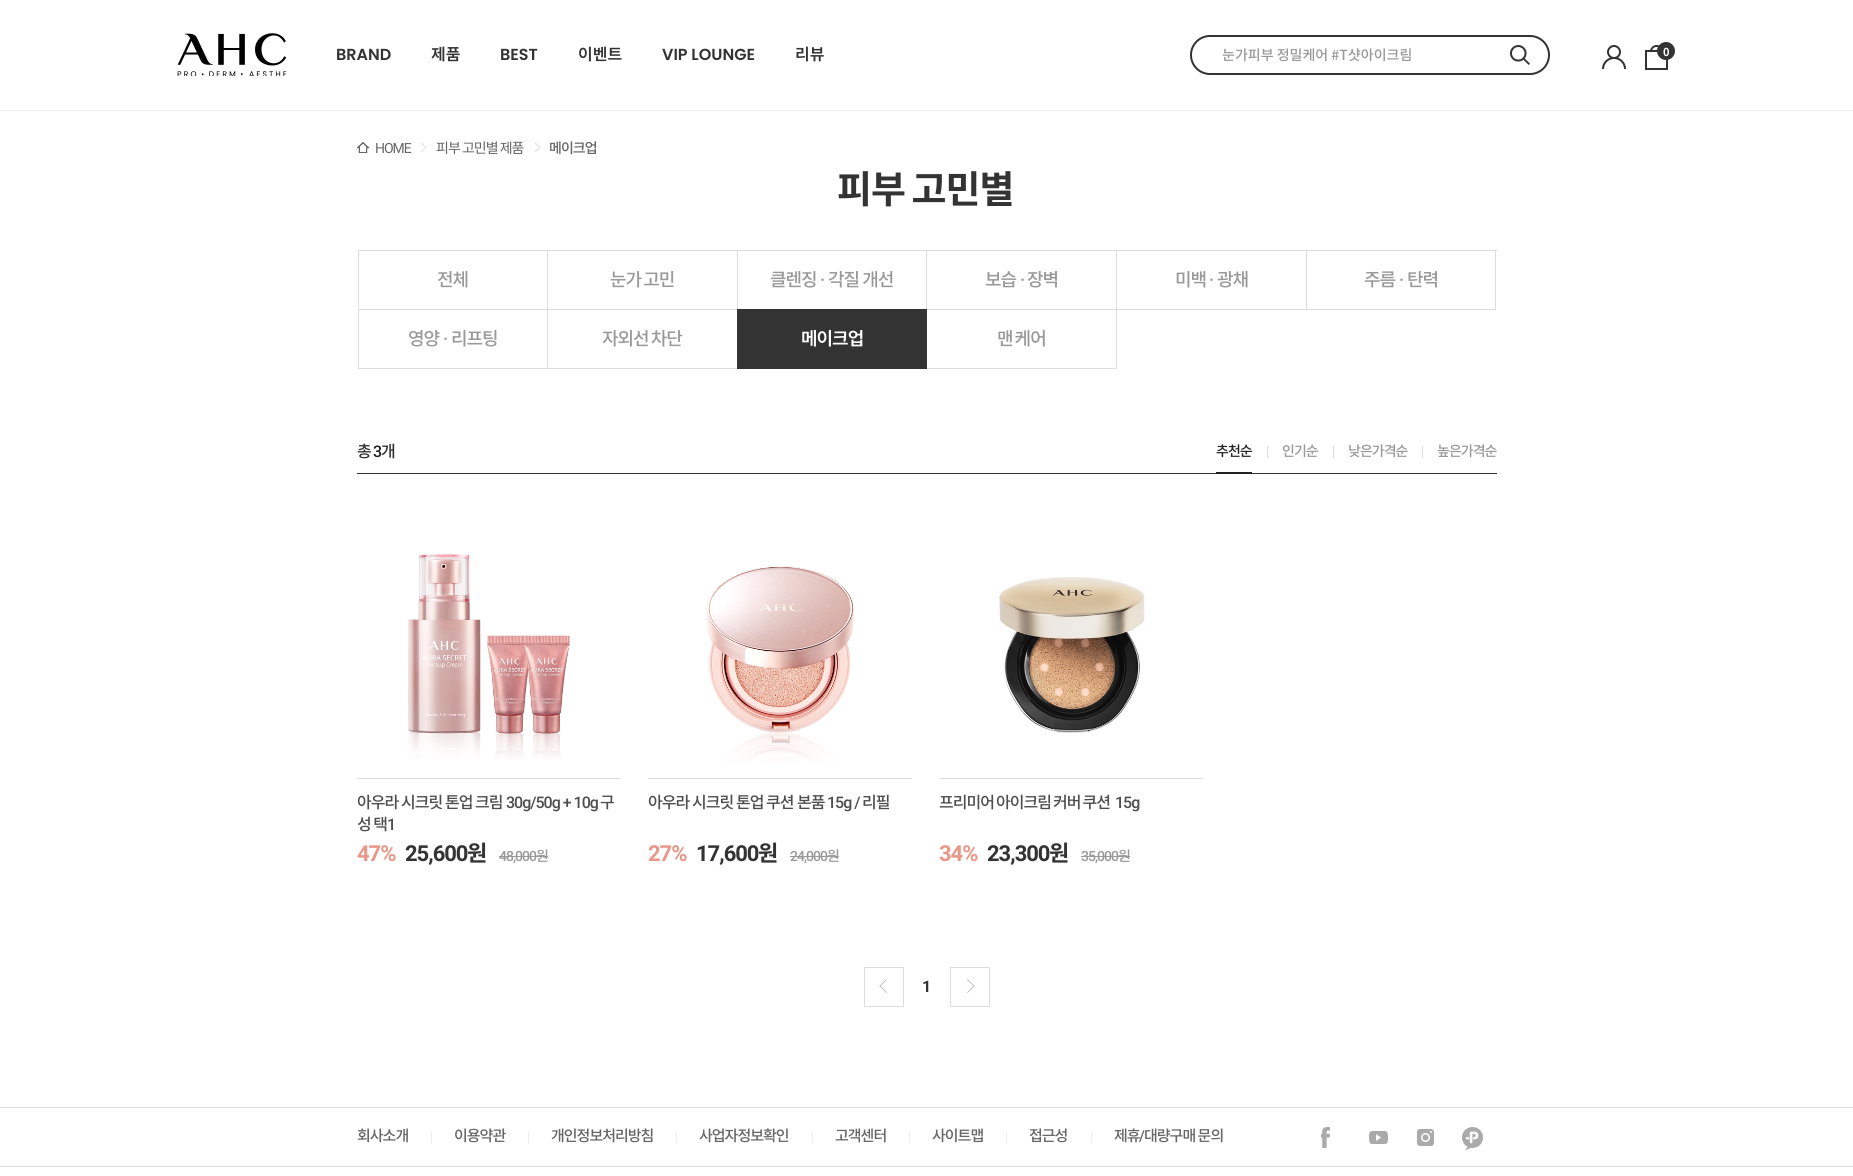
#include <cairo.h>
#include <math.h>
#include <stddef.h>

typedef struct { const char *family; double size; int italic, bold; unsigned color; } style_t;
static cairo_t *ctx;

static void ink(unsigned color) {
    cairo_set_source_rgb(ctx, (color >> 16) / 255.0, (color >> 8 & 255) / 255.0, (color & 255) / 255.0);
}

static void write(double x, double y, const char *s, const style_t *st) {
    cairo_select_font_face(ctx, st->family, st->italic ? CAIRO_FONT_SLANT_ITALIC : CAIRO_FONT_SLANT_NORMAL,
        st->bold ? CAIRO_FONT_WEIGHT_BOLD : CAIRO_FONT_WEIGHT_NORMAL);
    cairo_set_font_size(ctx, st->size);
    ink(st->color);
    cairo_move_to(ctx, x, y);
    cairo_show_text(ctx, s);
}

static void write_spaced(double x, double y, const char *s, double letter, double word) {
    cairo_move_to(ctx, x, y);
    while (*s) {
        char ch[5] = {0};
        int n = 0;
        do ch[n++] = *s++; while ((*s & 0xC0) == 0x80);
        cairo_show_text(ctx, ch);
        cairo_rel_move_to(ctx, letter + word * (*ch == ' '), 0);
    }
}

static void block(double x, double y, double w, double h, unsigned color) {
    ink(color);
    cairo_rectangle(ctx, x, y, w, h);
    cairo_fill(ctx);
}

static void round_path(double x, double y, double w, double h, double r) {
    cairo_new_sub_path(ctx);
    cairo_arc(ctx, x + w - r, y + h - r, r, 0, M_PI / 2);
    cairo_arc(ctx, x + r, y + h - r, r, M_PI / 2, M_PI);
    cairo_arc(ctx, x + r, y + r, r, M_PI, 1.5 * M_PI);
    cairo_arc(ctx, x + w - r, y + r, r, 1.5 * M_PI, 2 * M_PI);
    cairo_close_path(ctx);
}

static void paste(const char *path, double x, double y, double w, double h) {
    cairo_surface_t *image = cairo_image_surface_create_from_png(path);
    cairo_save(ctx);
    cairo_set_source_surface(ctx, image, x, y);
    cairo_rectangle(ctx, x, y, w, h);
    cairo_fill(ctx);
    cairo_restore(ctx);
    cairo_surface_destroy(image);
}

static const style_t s1 = {"Poppins SemiBold", 16, 0, 0, 0x333333};
static const style_t s2 = {"Noto Sans KR SemiBold", 16, 0, 0, 0x333333};
static const style_t s3 = {"Noto Sans KR Medium", 14, 0, 0, 0x999999};

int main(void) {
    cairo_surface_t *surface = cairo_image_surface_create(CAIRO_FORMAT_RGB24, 1853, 1176);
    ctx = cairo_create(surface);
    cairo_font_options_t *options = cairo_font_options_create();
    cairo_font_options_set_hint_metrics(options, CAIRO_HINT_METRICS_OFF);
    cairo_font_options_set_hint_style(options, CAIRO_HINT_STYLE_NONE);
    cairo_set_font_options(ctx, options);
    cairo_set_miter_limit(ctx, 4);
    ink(0xffffff);
    cairo_paint(ctx);
    block(0, 110, 1853, 1, 0xeeeeee);
    paste("pic1.png", 177, 33, 109, 43);
    write(336, 60, "BRAND", &s1);
    write(431, 60, "제품", &s2);
    write(500, 60, "BEST", &s1);
    write(578, 60, "이벤트", &s2);
    write(662, 60, "VIP LOUNGE", &s1);
    write(795, 60, "리뷰", &s2);
    round_path(1191, 36, 358, 38, 19);
    cairo_stroke(ctx);
    write(1222, 60, "눈가피부 정밀케어 #T샷아이크림", &s3);
    paste("pic2.png", 1510, 45, 20, 20);
    paste("pic3.png", 1602, 45, 24, 24);
    paste("pic4.png", 1645, 45, 23, 25);
    ink(0x333333);
    cairo_arc(ctx, 1666, 51, 9, 0, 2 * M_PI);
    cairo_fill(ctx);
    cairo_select_font_face(ctx, "Noto Sans KR", CAIRO_FONT_SLANT_NORMAL, CAIRO_FONT_WEIGHT_BOLD);
    cairo_set_font_size(ctx, 11);
    ink(0xffffff);
    write_spaced(1663, 56, "0", -1, 0);
    paste("pic5.png", 357, 142, 12, 11);
    cairo_select_font_face(ctx, "Roboto", CAIRO_FONT_SLANT_NORMAL, CAIRO_FONT_WEIGHT_NORMAL);
    cairo_set_font_size(ctx, 14);
    ink(0x666666);
    write_spaced(375, 153, "HOME", -1, 0);
    ink(0xdddddd);
    cairo_new_path(ctx);
    cairo_move_to(ctx, 421, 143.5);
    cairo_line_to(ctx, 421.5, 142.5);
    cairo_line_to(ctx, 426.5, 147.5);
    cairo_line_to(ctx, 426, 148);
    cairo_close_path(ctx);
    cairo_fill(ctx);
    cairo_new_path(ctx);
    cairo_move_to(ctx, 421, 151.5);
    cairo_line_to(ctx, 426, 147);
    cairo_line_to(ctx, 426.5, 147.5);
    cairo_line_to(ctx, 421.5, 152.5);
    cairo_close_path(ctx);
    cairo_fill(ctx);
    cairo_select_font_face(ctx, "Noto Sans KR", CAIRO_FONT_SLANT_NORMAL, CAIRO_FONT_WEIGHT_NORMAL);
    ink(0x666666);
    write_spaced(436, 153, "피부 고민별 제품", -1, 0);
    ink(0xdddddd);
    cairo_new_path(ctx);
    cairo_move_to(ctx, 534.5, 143.5);
    cairo_line_to(ctx, 535.5, 142.5);
    cairo_line_to(ctx, 540.5, 147.5);
    cairo_line_to(ctx, 539.5, 148);
    cairo_close_path(ctx);
    cairo_fill(ctx);
    cairo_new_path(ctx);
    cairo_move_to(ctx, 534.5, 151.5);
    cairo_line_to(ctx, 539.5, 147);
    cairo_line_to(ctx, 540.5, 147.5);
    cairo_line_to(ctx, 535.5, 152.5);
    cairo_close_path(ctx);
    cairo_fill(ctx);
    cairo_select_font_face(ctx, "Noto Sans KR Medium", CAIRO_FONT_SLANT_NORMAL, CAIRO_FONT_WEIGHT_NORMAL);
    ink(0x666666);
    write_spaced(549, 153, "메이크업", -1, 0);
    cairo_select_font_face(ctx, "Noto Sans KR", CAIRO_FONT_SLANT_NORMAL, CAIRO_FONT_WEIGHT_BOLD);
    cairo_set_font_size(ctx, 38);
    ink(0x333333);
    write_spaced(837, 203, "피부 고민별", -1, -1);
    block(1496, 250, 1, 1, 0xdddddd);
    cairo_rectangle(ctx, 358.5, 250.5, 189, 59);
    cairo_set_line_width(ctx, 1);
    cairo_stroke(ctx);
    cairo_select_font_face(ctx, "Noto Sans KR Medium", CAIRO_FONT_SLANT_NORMAL, CAIRO_FONT_WEIGHT_NORMAL);
    cairo_set_font_size(ctx, 18);
    ink(0x999999);
    write_spaced(437, 286, "전체", -1, 0);
    cairo_rectangle(ctx, 547.5, 250.5, 190, 59);
    ink(0xdddddd);
    cairo_stroke(ctx);
    ink(0x999999);
    write_spaced(610, 286, "눈가 고민", -1, -1);
    cairo_rectangle(ctx, 737.5, 250.5, 189, 59);
    ink(0xdddddd);
    cairo_stroke(ctx);
    ink(0x999999);
    write_spaced(770, 286, "클렌징", -1, 0);
    cairo_select_font_face(ctx, "Roboto Medium", CAIRO_FONT_SLANT_NORMAL, CAIRO_FONT_WEIGHT_NORMAL);
    write_spaced(820, 286, "·", -1, 0);
    cairo_select_font_face(ctx, "Noto Sans KR Medium", CAIRO_FONT_SLANT_NORMAL, CAIRO_FONT_WEIGHT_NORMAL);
    write_spaced(828, 286, "각질 개선", -1, 0);
    cairo_rectangle(ctx, 926.5, 250.5, 190, 59);
    ink(0xdddddd);
    cairo_stroke(ctx);
    ink(0x999999);
    write_spaced(985, 286, "보습", -1, 0);
    cairo_select_font_face(ctx, "Roboto Medium", CAIRO_FONT_SLANT_NORMAL, CAIRO_FONT_WEIGHT_NORMAL);
    write_spaced(1020, 286, "·", -1, 0);
    cairo_select_font_face(ctx, "Noto Sans KR Medium", CAIRO_FONT_SLANT_NORMAL, CAIRO_FONT_WEIGHT_NORMAL);
    write_spaced(1027, 286, "장벽", -1, 0);
    cairo_rectangle(ctx, 1116.5, 250.5, 190, 59);
    ink(0xdddddd);
    cairo_stroke(ctx);
    ink(0x999999);
    write_spaced(1175, 286, "미백", -1, 0);
    cairo_select_font_face(ctx, "Roboto Medium", CAIRO_FONT_SLANT_NORMAL, CAIRO_FONT_WEIGHT_NORMAL);
    write_spaced(1209, 286, "·", -1, 0);
    cairo_select_font_face(ctx, "Noto Sans KR Medium", CAIRO_FONT_SLANT_NORMAL, CAIRO_FONT_WEIGHT_NORMAL);
    write_spaced(1217, 286, "광채", -1, 0);
    cairo_rectangle(ctx, 1306.5, 250.5, 189, 59);
    ink(0xdddddd);
    cairo_stroke(ctx);
    ink(0x999999);
    write_spaced(1364, 286, "주름", -1, 0);
    cairo_select_font_face(ctx, "Roboto Medium", CAIRO_FONT_SLANT_NORMAL, CAIRO_FONT_WEIGHT_NORMAL);
    write_spaced(1399, 286, "·", -1, 0);
    cairo_select_font_face(ctx, "Noto Sans KR Medium", CAIRO_FONT_SLANT_NORMAL, CAIRO_FONT_WEIGHT_NORMAL);
    write_spaced(1407, 286, "탄력", -1, 0);
    cairo_rectangle(ctx, 358.5, 309.5, 189, 59);
    ink(0xdddddd);
    cairo_stroke(ctx);
    ink(0x999999);
    write_spaced(408, 345, "영양", -1, 0);
    cairo_select_font_face(ctx, "Roboto Medium", CAIRO_FONT_SLANT_NORMAL, CAIRO_FONT_WEIGHT_NORMAL);
    write_spaced(443, 345, "·", -1, 0);
    cairo_select_font_face(ctx, "Noto Sans KR Medium", CAIRO_FONT_SLANT_NORMAL, CAIRO_FONT_WEIGHT_NORMAL);
    write_spaced(451, 345, "리프팅", -1, 0);
    cairo_rectangle(ctx, 547.5, 309.5, 190, 59);
    ink(0xdddddd);
    cairo_stroke(ctx);
    ink(0x999999);
    write_spaced(602, 345, "자외선 차단", -1, -1);
    cairo_rectangle(ctx, 926.5, 309.5, 190, 59);
    ink(0xdddddd);
    cairo_stroke(ctx);
    block(737, 309, 190, 60, 0x333333);
    cairo_select_font_face(ctx, "Noto Sans KR SemiBold", CAIRO_FONT_SLANT_NORMAL, CAIRO_FONT_WEIGHT_NORMAL);
    ink(0xffffff);
    write_spaced(801, 345, "메이크업", -1, 0);
    cairo_select_font_face(ctx, "Noto Sans KR Medium", CAIRO_FONT_SLANT_NORMAL, CAIRO_FONT_WEIGHT_NORMAL);
    ink(0x999999);
    write_spaced(997, 345, "맨 케어", -1, -1);
    block(357, 473, 1140, 1, 0x333333);
    cairo_set_font_size(ctx, 16);
    write_spaced(357, 457, "총", -1, 0);
    cairo_select_font_face(ctx, "Roboto Medium", CAIRO_FONT_SLANT_NORMAL, CAIRO_FONT_WEIGHT_NORMAL);
    ink(0x222222);
    write_spaced(373, 457, "3", -1, 0);
    cairo_select_font_face(ctx, "Noto Sans KR Medium", CAIRO_FONT_SLANT_NORMAL, CAIRO_FONT_WEIGHT_NORMAL);
    ink(0x333333);
    write_spaced(381, 457, "개", -1, 0);
    cairo_set_font_size(ctx, 14);
    ink(0x222222);
    write_spaced(1216, 456, "추천순", -1, 0);
    block(1216, 472, 36, 2, 0x222222);
    block(1267, 446, 1, 12, 0xdddddd);
    ink(0x999999);
    write_spaced(1282, 456, "인기순", -1, 0);
    block(1333, 446, 1, 12, 0xdddddd);
    ink(0x999999);
    write_spaced(1348, 456, "낮은가격순", -1, 0);
    block(1422, 446, 1, 12, 0xdddddd);
    ink(0x999999);
    write_spaced(1437, 456, "높은가격순", -1, 0);
    paste("pic6.png", 408, 554, 162, 206);
    block(357, 778, 264, 1, 0xdddddd);
    cairo_set_font_size(ctx, 16);
    ink(0x4e4e4e);
    write_spaced(357, 808, "아우라", -1, 0);
    write_spaced(401, 808, "시크릿", -1, 0);
    write_spaced(445, 808, "톤업", -1, 0);
    write_spaced(475, 808, "크림", -1, 0);
    cairo_select_font_face(ctx, "Roboto Medium", CAIRO_FONT_SLANT_NORMAL, CAIRO_FONT_WEIGHT_NORMAL);
    write_spaced(506, 808, "30g/50g + 10g", -1, 0);
    cairo_select_font_face(ctx, "Noto Sans KR Medium", CAIRO_FONT_SLANT_NORMAL, CAIRO_FONT_WEIGHT_NORMAL);
    write_spaced(600, 808, "구", -1, 0);
    write_spaced(357, 830, "성 택", -1, 0);
    cairo_select_font_face(ctx, "Roboto Medium", CAIRO_FONT_SLANT_NORMAL, CAIRO_FONT_WEIGHT_NORMAL);
    write_spaced(387, 830, "1", -1, 0);
    cairo_select_font_face(ctx, "Roboto", CAIRO_FONT_SLANT_NORMAL, CAIRO_FONT_WEIGHT_BOLD);
    cairo_set_font_size(ctx, 22);
    ink(0xe89788);
    write_spaced(357, 861, "47%", -1, 0);
    ink(0x333333);
    write_spaced(405, 861, "25,600", -1, 0);
    cairo_select_font_face(ctx, "Noto Sans KR", CAIRO_FONT_SLANT_NORMAL, CAIRO_FONT_WEIGHT_BOLD);
    write_spaced(467, 861, "원", -1, 0);
    cairo_select_font_face(ctx, "Roboto Medium", CAIRO_FONT_SLANT_NORMAL, CAIRO_FONT_WEIGHT_NORMAL);
    cairo_set_font_size(ctx, 14);
    ink(0x999999);
    write_spaced(499, 861, "48,000", -1, 0);
    block(499, 856, 49, 1, 0x999999);
    cairo_select_font_face(ctx, "Noto Sans KR Medium", CAIRO_FONT_SLANT_NORMAL, CAIRO_FONT_WEIGHT_NORMAL);
    write_spaced(536, 861, "원", -1, 0);
    paste("pic7.png", 706, 566, 148, 197);
    block(648, 778, 264, 1, 0xdddddd);
    cairo_set_font_size(ctx, 16);
    ink(0x4e4e4e);
    write_spaced(648, 808, "아우라", -1, 0);
    write_spaced(692, 808, "시크릿", -1, 0);
    write_spaced(736, 808, "톤업", -1, 0);
    write_spaced(766, 808, "쿠션", -1, 0);
    write_spaced(797, 808, "본품", -1, 0);
    cairo_select_font_face(ctx, "Roboto Medium", CAIRO_FONT_SLANT_NORMAL, CAIRO_FONT_WEIGHT_NORMAL);
    write_spaced(827, 808, "15g /", -1, 0);
    cairo_select_font_face(ctx, "Noto Sans KR Medium", CAIRO_FONT_SLANT_NORMAL, CAIRO_FONT_WEIGHT_NORMAL);
    write_spaced(862, 808, "리필", -1, 0);
    cairo_select_font_face(ctx, "Roboto", CAIRO_FONT_SLANT_NORMAL, CAIRO_FONT_WEIGHT_BOLD);
    cairo_set_font_size(ctx, 22);
    ink(0xe89788);
    write_spaced(648, 861, "27%", -1, 0);
    ink(0x333333);
    write_spaced(696, 861, "17,600", -1, 0);
    cairo_select_font_face(ctx, "Noto Sans KR", CAIRO_FONT_SLANT_NORMAL, CAIRO_FONT_WEIGHT_BOLD);
    write_spaced(758, 861, "원", -1, 0);
    cairo_select_font_face(ctx, "Roboto Medium", CAIRO_FONT_SLANT_NORMAL, CAIRO_FONT_WEIGHT_NORMAL);
    cairo_set_font_size(ctx, 14);
    ink(0x999999);
    write_spaced(790, 861, "24,000", -1, 0);
    block(790, 856, 49, 1, 0x999999);
    cairo_select_font_face(ctx, "Noto Sans KR Medium", CAIRO_FONT_SLANT_NORMAL, CAIRO_FONT_WEIGHT_NORMAL);
    write_spaced(827, 861, "원", -1, 0);
    paste("pic8.png", 999, 577, 146, 156);
    block(939, 778, 264, 1, 0xdddddd);
    cairo_set_font_size(ctx, 16);
    ink(0x4e4e4e);
    write_spaced(939, 808, "프리미어 아이크림 커버 쿠션", -1, -0.5);
    cairo_select_font_face(ctx, "Roboto Medium", CAIRO_FONT_SLANT_NORMAL, CAIRO_FONT_WEIGHT_NORMAL);
    write_spaced(1115, 808, "15g", -1, 0);
    cairo_select_font_face(ctx, "Roboto", CAIRO_FONT_SLANT_NORMAL, CAIRO_FONT_WEIGHT_BOLD);
    cairo_set_font_size(ctx, 22);
    ink(0xe89788);
    write_spaced(939, 861, "34%", -1, 0);
    ink(0x333333);
    write_spaced(987, 861, "23,300", -1, 0);
    cairo_select_font_face(ctx, "Noto Sans KR", CAIRO_FONT_SLANT_NORMAL, CAIRO_FONT_WEIGHT_BOLD);
    write_spaced(1049, 861, "원", -1, 0);
    cairo_select_font_face(ctx, "Roboto Medium", CAIRO_FONT_SLANT_NORMAL, CAIRO_FONT_WEIGHT_NORMAL);
    cairo_set_font_size(ctx, 14);
    ink(0x999999);
    write_spaced(1081, 861, "35,000", -1, 0);
    block(1081, 856, 49, 1, 0x999999);
    cairo_select_font_face(ctx, "Noto Sans KR Medium", CAIRO_FONT_SLANT_NORMAL, CAIRO_FONT_WEIGHT_NORMAL);
    write_spaced(1118, 861, "원", -1, 0);
    cairo_rectangle(ctx, 864.5, 967.5, 39, 39);
    ink(0xdddddd);
    cairo_stroke(ctx);
    ink(0xaaaaaa);
    cairo_new_path(ctx);
    cairo_move_to(ctx, 887, 992.5);
    cairo_line_to(ctx, 886.5, 993);
    cairo_line_to(ctx, 879.5, 986);
    cairo_line_to(ctx, 880, 985.5);
    cairo_close_path(ctx);
    cairo_fill(ctx);
    cairo_new_path(ctx);
    cairo_move_to(ctx, 887, 979.5);
    cairo_line_to(ctx, 880, 986.5);
    cairo_line_to(ctx, 879.5, 986);
    cairo_line_to(ctx, 886.5, 979);
    cairo_close_path(ctx);
    cairo_fill(ctx);
    cairo_select_font_face(ctx, "Roboto", CAIRO_FONT_SLANT_NORMAL, CAIRO_FONT_WEIGHT_BOLD);
    cairo_set_font_size(ctx, 16);
    ink(0x333333);
    write_spaced(922, 992, "1", -1, 0);
    cairo_rectangle(ctx, 950.5, 967.5, 39, 39);
    ink(0xdddddd);
    cairo_stroke(ctx);
    ink(0xaaaaaa);
    cairo_new_path(ctx);
    cairo_move_to(ctx, 967, 979.5);
    cairo_line_to(ctx, 967.5, 979);
    cairo_line_to(ctx, 974.5, 986);
    cairo_line_to(ctx, 974, 986.5);
    cairo_close_path(ctx);
    cairo_fill(ctx);
    cairo_new_path(ctx);
    cairo_move_to(ctx, 967, 992.5);
    cairo_line_to(ctx, 974, 985.5);
    cairo_line_to(ctx, 974.5, 986);
    cairo_line_to(ctx, 967.5, 993);
    cairo_close_path(ctx);
    cairo_fill(ctx);
    block(0, 1107, 1853, 1, 0xdddddd);
    block(0, 1166, 1853, 1, 0xdddddd);
    cairo_select_font_face(ctx, "Noto Sans KR Medium", CAIRO_FONT_SLANT_NORMAL, CAIRO_FONT_WEIGHT_NORMAL);
    cairo_set_font_size(ctx, 15);
    ink(0x666666);
    write_spaced(357, 1141, "회사소개", -1, 0);
    block(431, 1132, 1, 11, 0xeeeeee);
    ink(0x666666);
    write_spaced(454, 1141, "이용약관", -1, 0);
    block(528, 1132, 1, 11, 0xeeeeee);
    ink(0x666666);
    write_spaced(551, 1141, "개인정보처리방침", -1, 0);
    block(676, 1132, 1, 11, 0xeeeeee);
    ink(0x666666);
    write_spaced(699, 1141, "사업자정보확인", -1, 0);
    block(812, 1132, 1, 11, 0xeeeeee);
    ink(0x666666);
    write_spaced(835, 1141, "고객센터", -1, 0);
    block(909, 1132, 1, 11, 0xeeeeee);
    ink(0x666666);
    write_spaced(932, 1141, "사이트맵", -1, 0);
    block(1006, 1132, 1, 11, 0xeeeeee);
    ink(0x666666);
    write_spaced(1029, 1141, "접근성", -1, 0);
    block(1091, 1132, 1, 11, 0xeeeeee);
    ink(0x666666);
    write_spaced(1114, 1141, "제휴", -1, 0);
    cairo_select_font_face(ctx, "Roboto Medium", CAIRO_FONT_SLANT_NORMAL, CAIRO_FONT_WEIGHT_NORMAL);
    write_spaced(1139, 1141, "/", -1, 0);
    cairo_select_font_face(ctx, "Noto Sans KR Medium", CAIRO_FONT_SLANT_NORMAL, CAIRO_FONT_WEIGHT_NORMAL);
    write_spaced(1144, 1141, "대량구매 문의", -1, 0);
    paste("pic9.png", 1321, 1127, 9, 21);
    paste("pic10.png", 1369, 1131, 19, 13);
    paste("pic11.png", 1417, 1129, 17, 17);
    paste("pic12.png", 1462, 1127, 21, 23);
    cairo_surface_write_to_png(surface, "screenshot.png");
    cairo_font_options_destroy(options);
    cairo_destroy(ctx);
    cairo_surface_destroy(surface);
    return 0;
}
